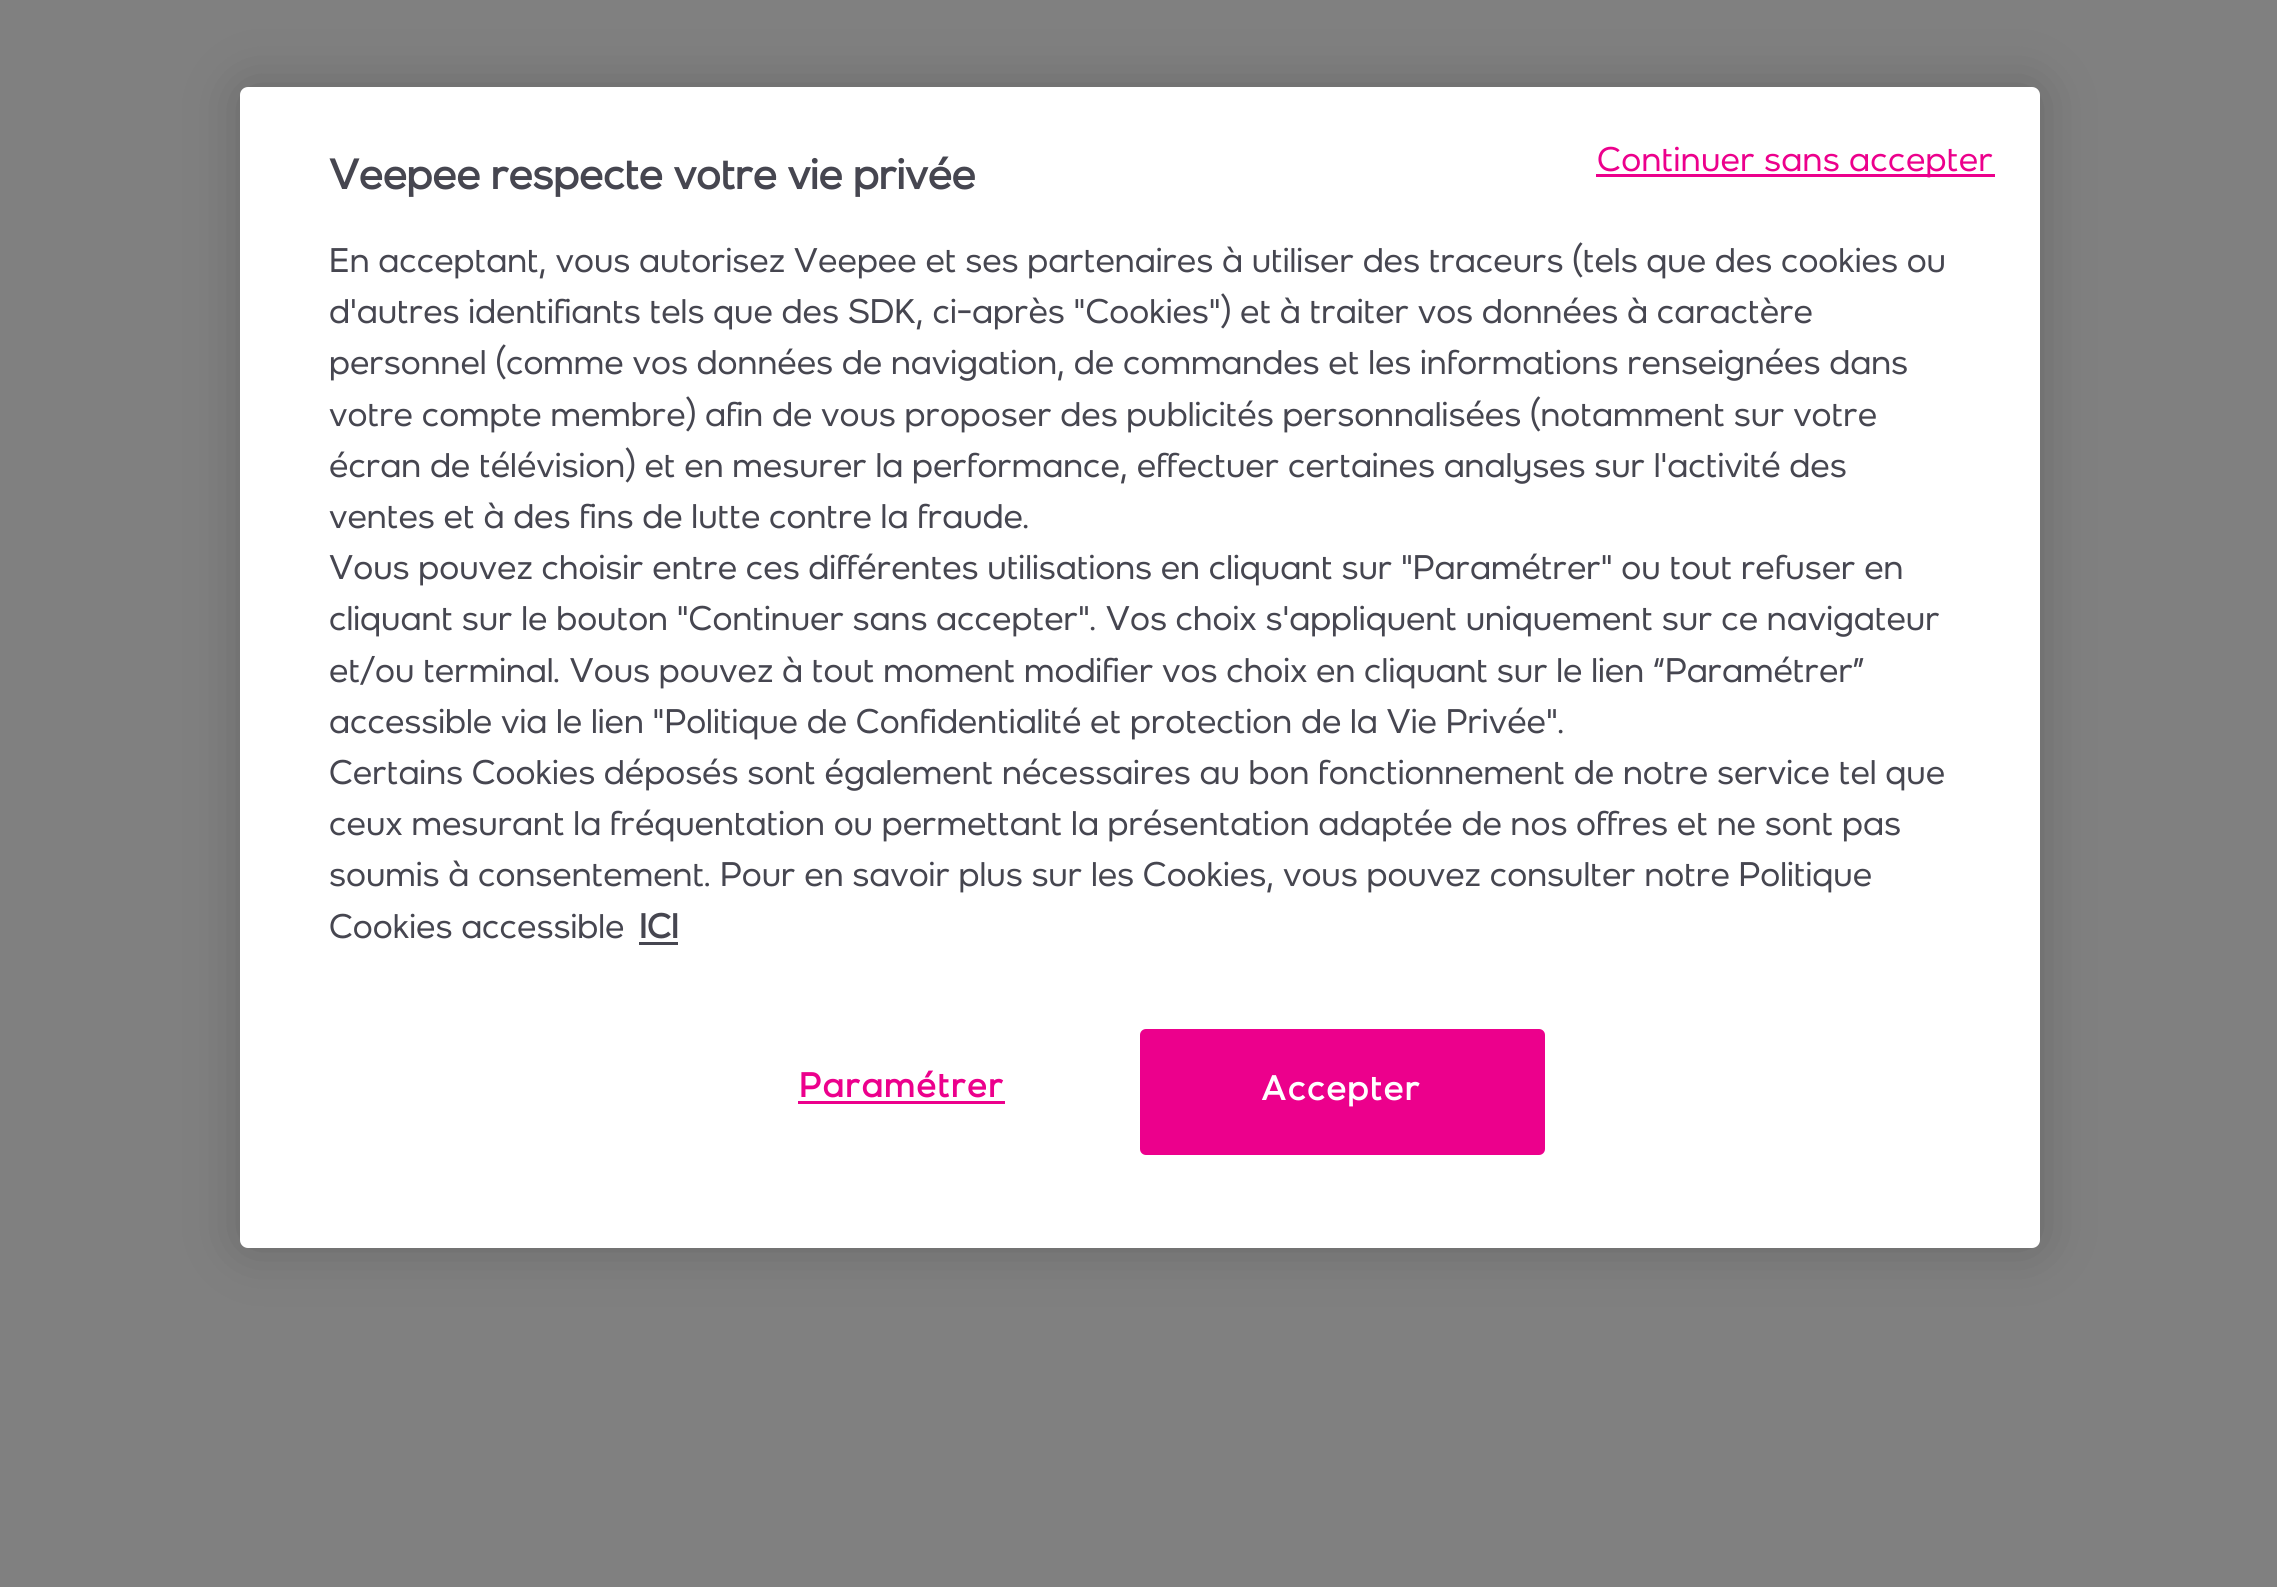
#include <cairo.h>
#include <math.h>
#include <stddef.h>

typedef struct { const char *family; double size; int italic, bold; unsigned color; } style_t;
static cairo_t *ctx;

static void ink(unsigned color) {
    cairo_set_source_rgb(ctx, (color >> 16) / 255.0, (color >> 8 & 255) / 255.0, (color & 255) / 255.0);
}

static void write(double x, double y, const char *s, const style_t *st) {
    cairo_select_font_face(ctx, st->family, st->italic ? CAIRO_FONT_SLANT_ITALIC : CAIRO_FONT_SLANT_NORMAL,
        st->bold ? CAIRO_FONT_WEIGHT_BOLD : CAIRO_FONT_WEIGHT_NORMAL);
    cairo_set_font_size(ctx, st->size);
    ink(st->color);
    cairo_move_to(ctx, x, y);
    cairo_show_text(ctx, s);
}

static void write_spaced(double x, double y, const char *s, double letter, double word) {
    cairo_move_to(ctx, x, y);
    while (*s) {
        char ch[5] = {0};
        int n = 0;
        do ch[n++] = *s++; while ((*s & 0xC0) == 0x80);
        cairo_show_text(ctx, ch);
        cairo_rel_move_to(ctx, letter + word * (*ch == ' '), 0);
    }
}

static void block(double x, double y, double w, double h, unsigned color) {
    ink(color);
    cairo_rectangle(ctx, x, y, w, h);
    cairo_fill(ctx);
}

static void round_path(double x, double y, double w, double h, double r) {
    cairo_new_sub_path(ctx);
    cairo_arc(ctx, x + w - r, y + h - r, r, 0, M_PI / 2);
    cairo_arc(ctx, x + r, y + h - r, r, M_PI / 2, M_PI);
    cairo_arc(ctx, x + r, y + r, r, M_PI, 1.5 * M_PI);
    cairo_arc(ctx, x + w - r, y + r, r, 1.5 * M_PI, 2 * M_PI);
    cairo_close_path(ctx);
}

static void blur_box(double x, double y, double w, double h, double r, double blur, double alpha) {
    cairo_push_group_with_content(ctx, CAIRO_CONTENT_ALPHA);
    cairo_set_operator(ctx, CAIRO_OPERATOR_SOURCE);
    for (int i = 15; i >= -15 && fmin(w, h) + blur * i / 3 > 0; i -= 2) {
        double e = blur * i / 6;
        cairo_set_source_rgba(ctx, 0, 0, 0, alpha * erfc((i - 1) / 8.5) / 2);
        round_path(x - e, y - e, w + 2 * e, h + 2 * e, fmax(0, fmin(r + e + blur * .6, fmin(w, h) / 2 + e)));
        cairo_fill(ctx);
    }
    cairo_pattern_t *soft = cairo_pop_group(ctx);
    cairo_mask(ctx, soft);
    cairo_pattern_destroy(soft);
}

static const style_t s1 = {"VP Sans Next", 42, 0, 1, 0x464650};
static const style_t s2 = {"VP Sans Next", 34.15, 0, 0, 0x464650};
static const style_t s3 = {"VP Sans Next", 34.15, 0, 1, 0x464650};

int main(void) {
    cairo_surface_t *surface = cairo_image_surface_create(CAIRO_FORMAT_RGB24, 2277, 1587);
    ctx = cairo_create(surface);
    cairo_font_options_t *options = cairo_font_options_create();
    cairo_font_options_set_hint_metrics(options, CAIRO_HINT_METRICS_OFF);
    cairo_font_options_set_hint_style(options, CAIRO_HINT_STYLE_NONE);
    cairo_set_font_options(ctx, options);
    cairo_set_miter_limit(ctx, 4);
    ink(0x808080);
    cairo_paint(ctx);
    ink(0x000000);
    blur_box(240, 87, 1800, 1161, 8, 27, 0.2);
    ink(0xffffff);
    round_path(240, 87, 1800, 1161, 8);
    cairo_fill(ctx);
    block(1596, 174, 399, 3, 0xec008c);
    cairo_select_font_face(ctx, "VP Sans Next", CAIRO_FONT_SLANT_NORMAL, CAIRO_FONT_WEIGHT_NORMAL);
    cairo_set_font_size(ctx, 34.15);
    write_spaced(1597, 171, "Continuer sans accepter", 0.3, 0);
    write(329, 189, "Veepee respecte votre vie privée", &s1);
    write(329, 272, "En acceptant, vous autorisez Veepee et ses partenaires à utiliser des traceurs (tels que des cookies ou", &s2);
    write(329, 323, "d'autres identifiants tels que des SDK, ci-après \"Cookies\") et à traiter vos données à caractère", &s2);
    write(329, 374, "personnel (comme vos données de navigation, de commandes et les informations renseignées dans", &s2);
    write(329, 426, "votre compte membre) afin de vous proposer des publicités personnalisées (notamment sur votre", &s2);
    write(329, 477, "écran de télévision) et en mesurer la performance, effectuer certaines analyses sur l'activité des", &s2);
    write(329, 528, "ventes et à des fins de lutte contre la fraude.", &s2);
    write(329, 579, "Vous pouvez choisir entre ces différentes utilisations en cliquant sur \"Paramétrer\" ou tout refuser en", &s2);
    write(329, 630, "cliquant sur le bouton \"Continuer sans accepter\". Vos choix s'appliquent uniquement sur ce navigateur", &s2);
    write(329, 682, "et/ou terminal. Vous pouvez à tout moment modifier vos choix en cliquant sur le lien “Paramétrer”", &s2);
    write(329, 733, "accessible via le lien \"Politique de Confidentialité et protection de la Vie Privée\".", &s2);
    write(329, 784, "Certains Cookies déposés sont également nécessaires au bon fonctionnement de notre service tel que", &s2);
    write(329, 835, "ceux mesurant la fréquentation ou permettant la présentation adaptée de nos offres et ne sont pas", &s2);
    write(329, 886, "soumis à consentement. Pour en savoir plus sur les Cookies, vous pouvez consulter notre Politique", &s2);
    write(329, 938, "Cookies accessible", &s2);
    write(639, 938, "ICI", &s3);
    block(639, 942, 39, 3, 0x464650);
    ink(0xec008c);
    write_spaced(799, 1097, "Paramétrer", 1.75, 0);
    block(798, 1101, 207, 3, 0xec008c);
    round_path(1141.5, 1030.5, 402, 123, 4.5);
    cairo_fill_preserve(ctx);
    cairo_set_line_width(ctx, 3);
    cairo_stroke(ctx);
    ink(0xffffff);
    write_spaced(1261, 1100, "Accepter", 1.75, 0);
    cairo_surface_write_to_png(surface, "screenshot.png");
    cairo_font_options_destroy(options);
    cairo_destroy(ctx);
    cairo_surface_destroy(surface);
    return 0;
}
